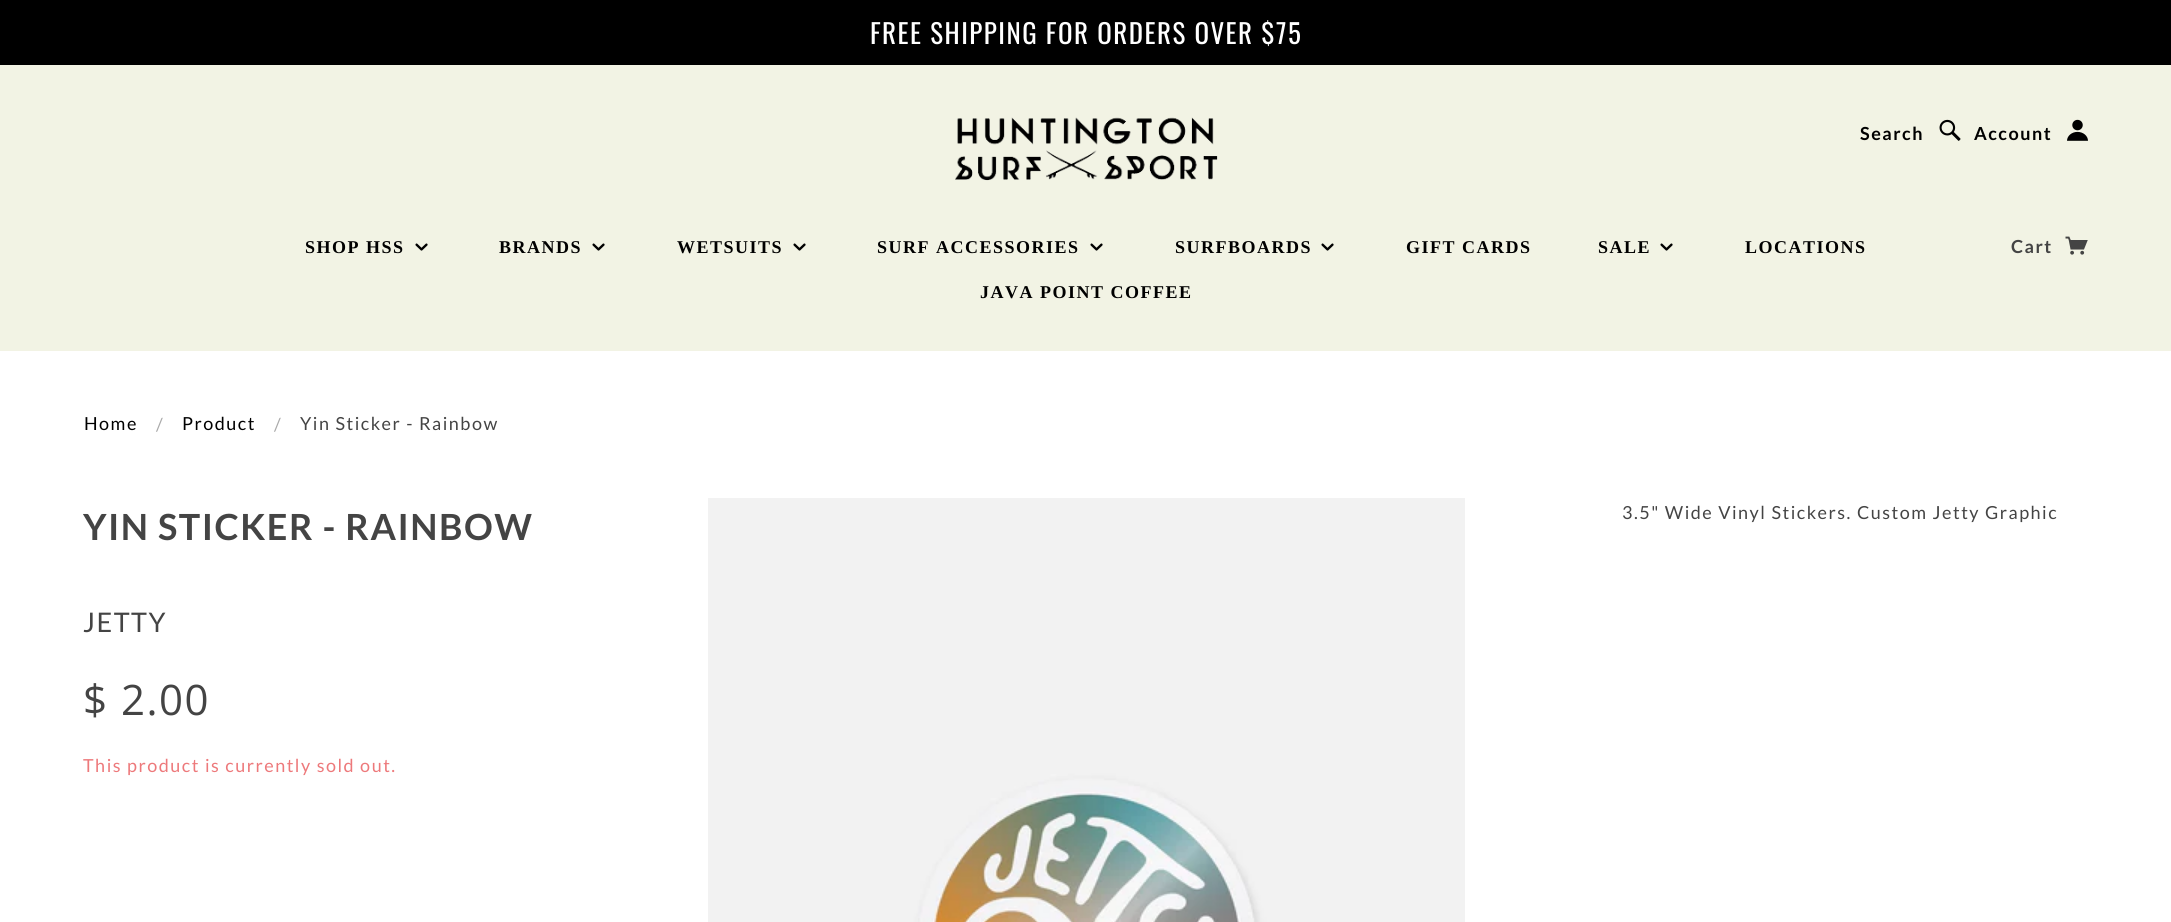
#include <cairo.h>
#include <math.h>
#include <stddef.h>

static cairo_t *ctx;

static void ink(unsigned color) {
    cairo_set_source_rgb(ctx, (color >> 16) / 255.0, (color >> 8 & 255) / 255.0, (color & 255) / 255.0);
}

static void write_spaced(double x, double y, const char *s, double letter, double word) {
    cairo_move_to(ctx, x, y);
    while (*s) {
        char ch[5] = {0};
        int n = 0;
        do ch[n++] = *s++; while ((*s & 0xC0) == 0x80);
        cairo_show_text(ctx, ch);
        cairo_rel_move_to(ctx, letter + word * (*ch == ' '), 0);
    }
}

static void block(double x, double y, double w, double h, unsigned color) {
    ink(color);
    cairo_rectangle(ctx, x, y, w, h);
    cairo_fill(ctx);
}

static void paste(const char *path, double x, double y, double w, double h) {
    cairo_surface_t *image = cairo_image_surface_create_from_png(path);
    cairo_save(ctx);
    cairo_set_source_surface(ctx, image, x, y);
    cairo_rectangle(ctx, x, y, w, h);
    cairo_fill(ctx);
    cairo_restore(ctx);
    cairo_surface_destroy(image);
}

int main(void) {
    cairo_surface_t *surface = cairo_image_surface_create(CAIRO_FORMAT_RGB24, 2171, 922);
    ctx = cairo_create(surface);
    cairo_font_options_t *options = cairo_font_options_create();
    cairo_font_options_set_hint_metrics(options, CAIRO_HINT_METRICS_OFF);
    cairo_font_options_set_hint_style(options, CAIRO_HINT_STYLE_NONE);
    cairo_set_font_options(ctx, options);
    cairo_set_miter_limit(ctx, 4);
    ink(0xffffff);
    cairo_paint(ctx);
    block(0, 0, 2171, 65, 0x000000);
    cairo_select_font_face(ctx, "Oswald", CAIRO_FONT_SLANT_NORMAL, CAIRO_FONT_WEIGHT_NORMAL);
    cairo_set_font_size(ctx, 27);
    ink(0xffffff);
    write_spaced(870, 44, "FREE SHIPPING FOR ORDERS OVER $75", 1.5, 0);
    block(0, 65, 2171, 286, 0xf2f3e4);
    paste("pic1.png", 955, 117, 263, 64);
    cairo_select_font_face(ctx, "Lato", CAIRO_FONT_SLANT_NORMAL, CAIRO_FONT_WEIGHT_BOLD);
    cairo_set_font_size(ctx, 18);
    ink(0x000000);
    write_spaced(1860, 140, "Search", 1.5, 0);
    paste("pic2.png", 1939, 119, 22, 22);
    write_spaced(1974, 140, "Account", 1.5, 0);
    paste("pic3.png", 2067, 119, 21, 22);
    cairo_select_font_face(ctx, "Liberation Serif", CAIRO_FONT_SLANT_NORMAL, CAIRO_FONT_WEIGHT_BOLD);
    write_spaced(305, 253, "SHOP HSS", 1.5, 0);
    paste("pic4.png", 415, 243, 13, 8);
    write_spaced(499, 253, "BRANDS", 1.5, 0);
    paste("pic4.png", 592, 243, 13, 8);
    write_spaced(677, 253, "WETSUITS", 1.5, 0);
    paste("pic4.png", 793, 243, 13, 8);
    write_spaced(877, 253, "SURF ACCESSORIES", 1.5, 0);
    paste("pic4.png", 1090, 243, 13, 8);
    write_spaced(1175, 253, "SURFBOARDS", 1.5, 0);
    paste("pic4.png", 1321, 243, 13, 8);
    write_spaced(1406, 253, "GIFT CARDS", 1.5, 0);
    write_spaced(1598, 253, "SALE", 1.5, 0);
    paste("pic4.png", 1660, 243, 13, 8);
    write_spaced(1745, 253, "LOCATIONS", 1.5, 0);
    write_spaced(980, 298, "JAVA POINT COFFEE", 1.5, 0);
    cairo_select_font_face(ctx, "Lato", CAIRO_FONT_SLANT_NORMAL, CAIRO_FONT_WEIGHT_BOLD);
    ink(0x444444);
    write_spaced(2011, 253, "Cart", 1.5, 0);
    paste("pic5.png", 2065, 236, 23, 19);
    cairo_select_font_face(ctx, "Lato", CAIRO_FONT_SLANT_NORMAL, CAIRO_FONT_WEIGHT_NORMAL);
    ink(0x000000);
    write_spaced(84, 430, "Home", 1.5, 0);
    ink(0xaaaaaa);
    write_spaced(156, 431, "/", 1.5, 0);
    ink(0x000000);
    write_spaced(182, 430, "Product", 1.5, 0);
    ink(0xaaaaaa);
    write_spaced(274, 431, "/", 1.5, 0);
    ink(0x444444);
    write_spaced(300, 430, "Yin Sticker - Rainbow", 1.5, 0);
    cairo_select_font_face(ctx, "Lato", CAIRO_FONT_SLANT_NORMAL, CAIRO_FONT_WEIGHT_BOLD);
    cairo_set_font_size(ctx, 36);
    write_spaced(83, 540, "YIN STICKER - RAINBOW", 1.5, 0);
    cairo_select_font_face(ctx, "Lato", CAIRO_FONT_SLANT_NORMAL, CAIRO_FONT_WEIGHT_NORMAL);
    cairo_set_font_size(ctx, 27);
    write_spaced(83, 632, "JETTY", 1.5, 0);
    cairo_select_font_face(ctx, "Open Sans", CAIRO_FONT_SLANT_NORMAL, CAIRO_FONT_WEIGHT_NORMAL);
    cairo_set_font_size(ctx, 42);
    write_spaced(83, 715, "$ 2.00", 1.5, 0);
    cairo_select_font_face(ctx, "Lato", CAIRO_FONT_SLANT_NORMAL, CAIRO_FONT_WEIGHT_NORMAL);
    cairo_set_font_size(ctx, 18);
    ink(0xed797b);
    write_spaced(83, 772, "This product is currently sold out.", 1.5, 0);
    paste("pic6.png", 708, 498, 757, 424);
    ink(0x444444);
    write_spaced(1622, 519, "3.5\" Wide Vinyl Stickers. Custom Jetty Graphic", 1.5, 0);
    cairo_surface_write_to_png(surface, "screenshot.png");
    cairo_font_options_destroy(options);
    cairo_destroy(ctx);
    cairo_surface_destroy(surface);
    return 0;
}
